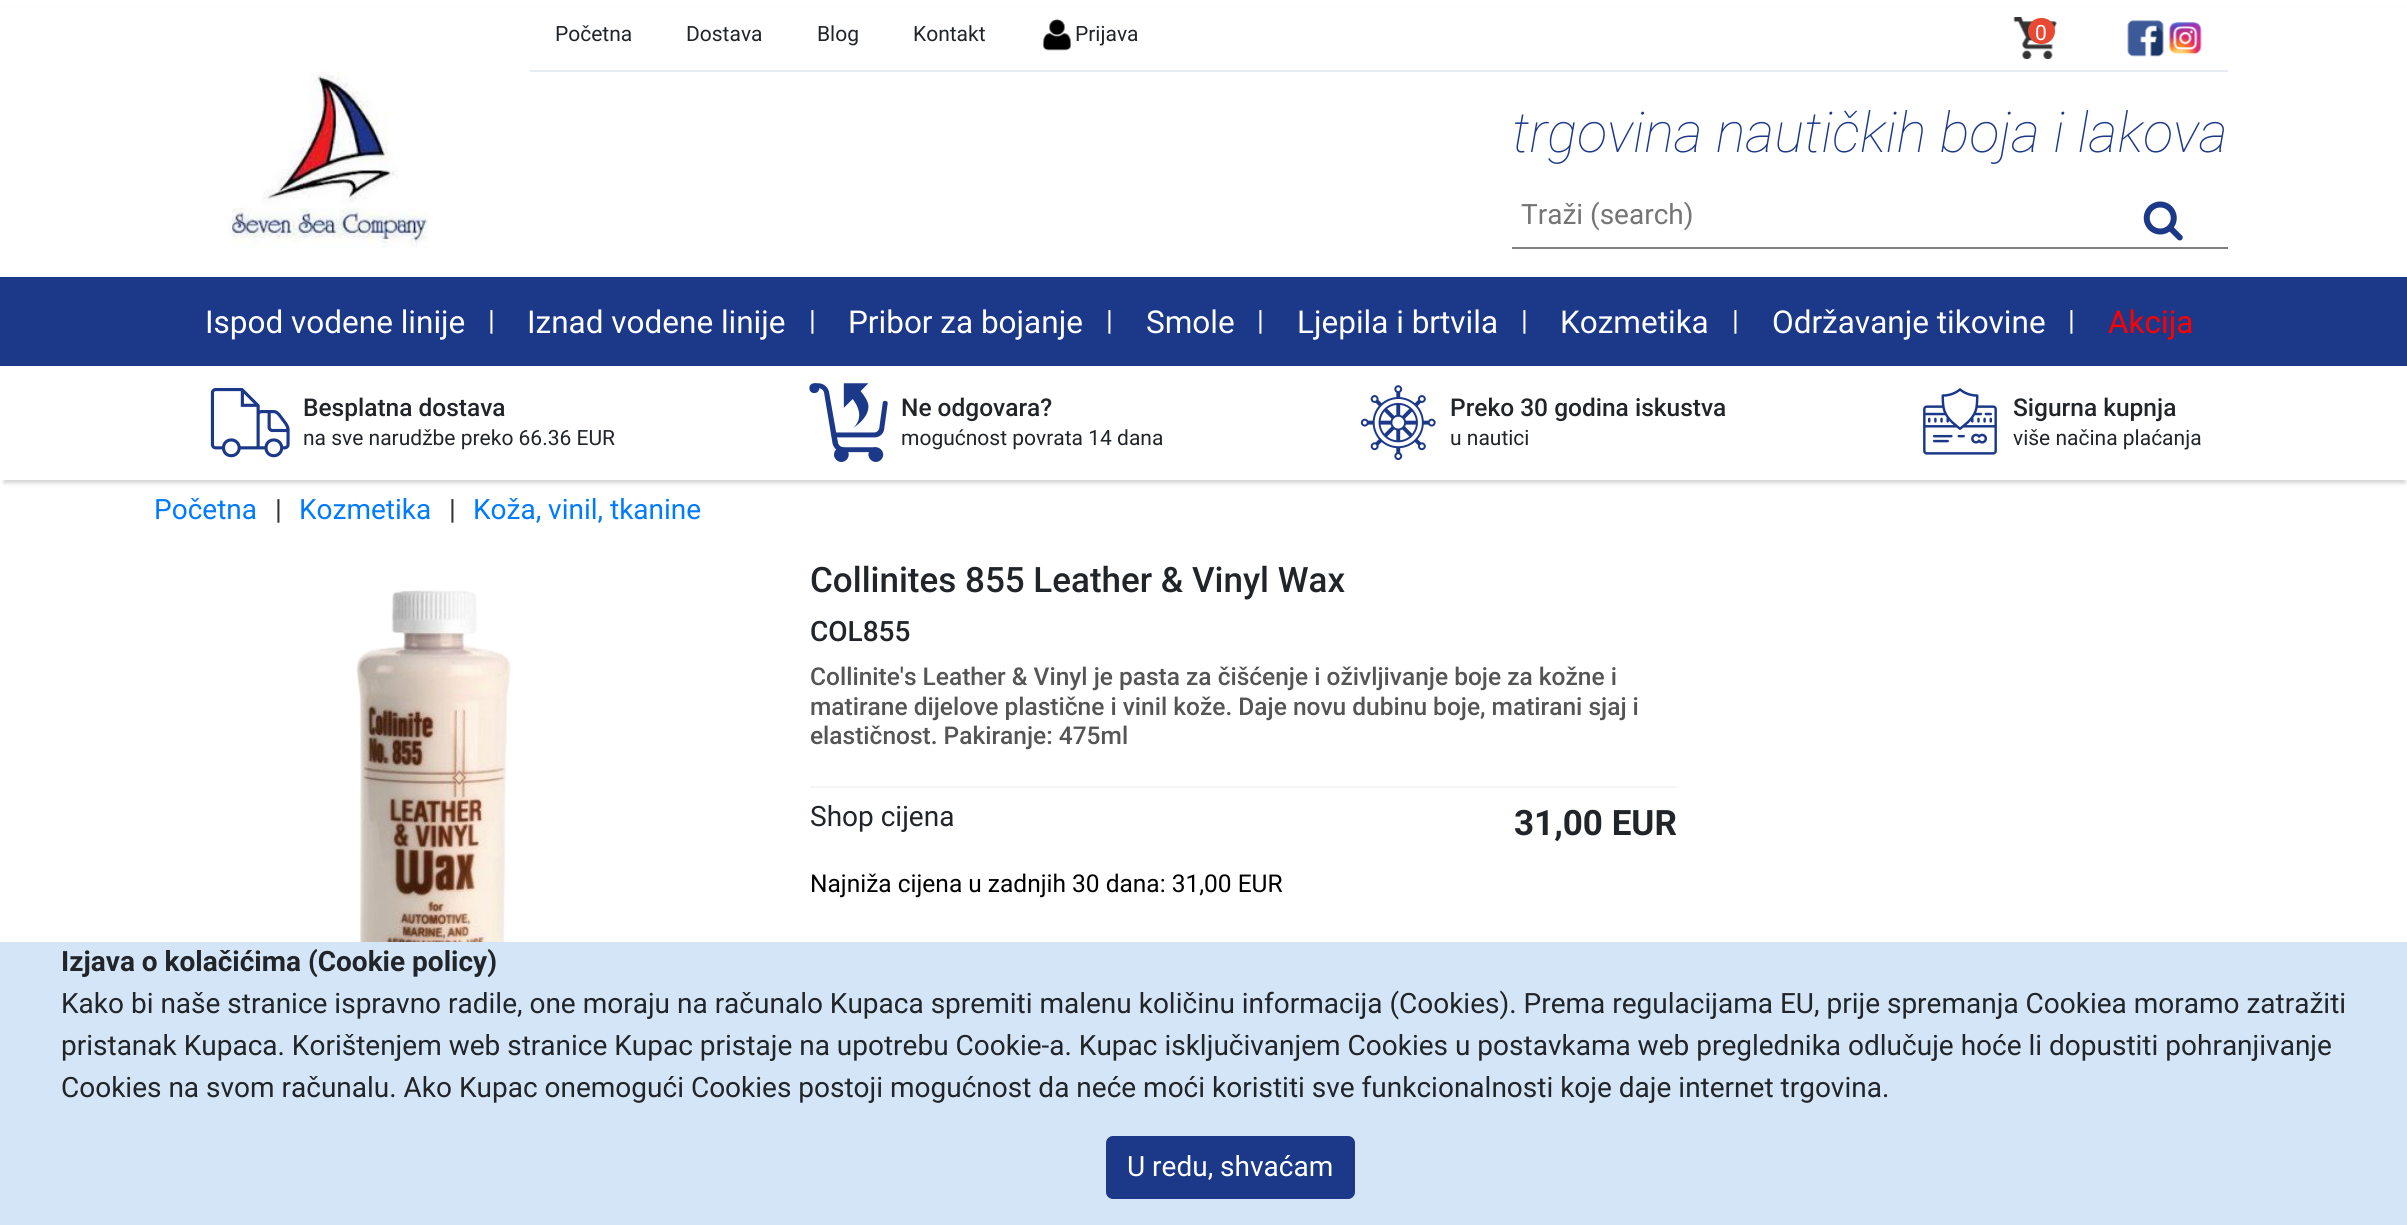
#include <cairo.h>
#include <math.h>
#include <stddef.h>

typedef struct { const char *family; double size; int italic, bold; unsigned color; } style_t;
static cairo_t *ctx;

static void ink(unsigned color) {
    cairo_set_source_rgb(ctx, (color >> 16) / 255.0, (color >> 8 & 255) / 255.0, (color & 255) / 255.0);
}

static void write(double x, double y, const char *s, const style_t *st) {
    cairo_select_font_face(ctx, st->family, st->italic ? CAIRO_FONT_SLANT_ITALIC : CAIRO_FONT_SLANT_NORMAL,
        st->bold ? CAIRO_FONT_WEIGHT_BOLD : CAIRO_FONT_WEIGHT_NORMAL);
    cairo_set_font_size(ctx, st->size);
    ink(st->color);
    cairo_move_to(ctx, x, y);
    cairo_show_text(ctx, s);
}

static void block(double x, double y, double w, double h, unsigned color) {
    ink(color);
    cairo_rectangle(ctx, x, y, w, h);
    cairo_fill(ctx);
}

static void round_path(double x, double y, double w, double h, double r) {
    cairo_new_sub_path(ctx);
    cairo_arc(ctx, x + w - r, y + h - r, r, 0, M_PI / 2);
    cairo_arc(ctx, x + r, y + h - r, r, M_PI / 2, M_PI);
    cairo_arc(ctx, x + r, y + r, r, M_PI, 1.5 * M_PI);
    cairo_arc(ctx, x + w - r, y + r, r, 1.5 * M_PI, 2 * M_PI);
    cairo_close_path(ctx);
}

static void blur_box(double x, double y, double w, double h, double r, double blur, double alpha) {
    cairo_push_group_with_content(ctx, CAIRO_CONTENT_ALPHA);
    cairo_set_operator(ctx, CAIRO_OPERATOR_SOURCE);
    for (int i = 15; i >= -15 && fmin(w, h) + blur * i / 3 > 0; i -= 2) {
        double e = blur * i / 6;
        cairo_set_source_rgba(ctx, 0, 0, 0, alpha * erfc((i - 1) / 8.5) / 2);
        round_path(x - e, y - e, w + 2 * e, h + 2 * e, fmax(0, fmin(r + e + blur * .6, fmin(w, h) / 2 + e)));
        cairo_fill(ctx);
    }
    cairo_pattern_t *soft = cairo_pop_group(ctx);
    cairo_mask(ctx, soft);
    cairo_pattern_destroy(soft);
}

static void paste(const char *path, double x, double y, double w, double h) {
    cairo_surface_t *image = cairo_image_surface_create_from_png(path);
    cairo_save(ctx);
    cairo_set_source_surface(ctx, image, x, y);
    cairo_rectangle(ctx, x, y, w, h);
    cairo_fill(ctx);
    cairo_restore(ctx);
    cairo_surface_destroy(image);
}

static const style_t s1 = {"Roboto", 21, 0, 0, 0x212529};
static const style_t s2 = {"Roboto", 21, 0, 0, 0xffffff};
static const style_t s3 = {"Roboto Thin", 56, 1, 0, 0x1b3889};
static const style_t s4 = {"Roboto", 28, 0, 0, 0x757575};
static const style_t s5 = {"Roboto", 31.5, 0, 0, 0xffffff};
static const style_t s6 = {"Roboto", 28, 0, 0, 0xffffff};
static const style_t s7 = {"Roboto", 31.5, 0, 0, 0xff0000};
static const style_t s8 = {"Roboto Medium", 24.5, 0, 0, 0x212529};
static const style_t s9 = {"Roboto", 28, 0, 0, 0x007bff};
static const style_t s10 = {"Roboto", 28, 0, 0, 0x333333};
static const style_t s11 = {"Roboto Medium", 35, 0, 0, 0x212529};
static const style_t s12 = {"Roboto Medium", 28, 0, 0, 0x212529};
static const style_t s13 = {"Roboto Medium", 24.5, 0, 0, 0x555555};
static const style_t s14 = {"Roboto", 28, 0, 0, 0x212529};
static const style_t s15 = {"Roboto", 35, 0, 1, 0x212529};
static const style_t s16 = {"Roboto", 24.5, 0, 0, 0x000000};
static const style_t s17 = {"Roboto", 28, 0, 1, 0x212529};

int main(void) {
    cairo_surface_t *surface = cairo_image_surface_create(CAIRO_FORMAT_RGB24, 2407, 1225);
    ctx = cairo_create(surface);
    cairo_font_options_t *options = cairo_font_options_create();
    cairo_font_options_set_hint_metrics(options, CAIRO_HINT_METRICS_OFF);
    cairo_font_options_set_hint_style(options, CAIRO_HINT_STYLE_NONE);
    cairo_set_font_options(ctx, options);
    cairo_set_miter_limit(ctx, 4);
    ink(0xffffff);
    cairo_paint(ctx);
    ink(0xd3d3d3);
    blur_box(4, 11, 2401, 472, 0, 2, 1);
    block(1, 8, 2406, 472, 0xffffff);
    paste("pic1.png", 228, 71, 200, 177);
    block(530, 70, 1698, 2, 0xe6ecf3);
    write(555, 41, "Početna", &s1);
    write(686, 41, "Dostava", &s1);
    write(817, 41, "Blog", &s1);
    write(913, 41, "Kontakt", &s1);
    paste("pic2.png", 1042, 19, 30, 32);
    write(1075, 41, "Prijava", &s1);
    paste("pic3.png", 2013, 17, 44, 42);
    ink(0xe94832);
    round_path(2028, 18, 27, 26, 13);
    cairo_fill(ctx);
    write(2035, 40, "0", &s2);
    paste("pic4.png", 2127, 20, 37, 37);
    paste("pic5.png", 2169, 22, 33, 33);
    write(1512, 152, "trgovina nautičkih boja i lakova", &s3);
    block(1512, 247, 716, 2, 0x808080);
    write(1521, 224, "Traži (search)", &s4);
    paste("pic6.png", 2143, 201, 40, 40);
    block(0, 277, 2407, 89, 0x1b3889);
    write(205, 333, "Ispod vodene linije", &s5);
    write(488, 330, "|", &s6);
    write(527, 333, "Iznad vodene linije", &s5);
    write(809, 330, "|", &s6);
    write(848, 333, "Pribor za bojanje", &s5);
    write(1106, 330, "|", &s6);
    write(1146, 333, "Smole", &s5);
    write(1257, 330, "|", &s6);
    write(1297, 333, "Ljepila i brtvila", &s5);
    write(1521, 330, "|", &s6);
    write(1560, 333, "Kozmetika", &s5);
    write(1732, 330, "|", &s6);
    write(1772, 333, "Održavanje tikovine", &s5);
    write(2068, 330, "|", &s6);
    write(2108, 333, "Akcija", &s7);
    paste("pic7.png", 210, 388, 80, 70);
    write(303, 416, "Besplatna dostava", &s8);
    write(303, 445, "na sve narudžbe preko 66.36 EUR", &s1);
    paste("pic8.png", 809, 383, 79, 79);
    write(901, 416, "Ne odgovara?", &s8);
    write(901, 445, "mogućnost povrata 14 dana", &s1);
    paste("pic9.png", 1360, 385, 76, 75);
    write(1450, 416, "Preko 30 godina iskustva", &s8);
    write(1450, 445, "u nautici", &s1);
    paste("pic10.png", 1923, 388, 74, 67);
    write(2013, 416, "Sigurna kupnja", &s8);
    write(2013, 445, "više načina plaćanja", &s1);
    write(154, 519, "Početna", &s9);
    write(275, 519, "|", &s10);
    write(299, 519, "Kozmetika", &s9);
    write(449, 519, "|", &s10);
    write(473, 519, "Koža, vinil, tkanine", &s9);
    paste("pic11.png", 356, 590, 155, 352);
    write(810, 592, "Collinites 855 Leather & Vinyl Wax", &s11);
    write(810, 641, "COL855", &s12);
    write(810, 685, "Collinite's Leather & Vinyl je pasta za čišćenje i oživljivanje boje za kožne i", &s13);
    write(810, 715, "matirane dijelove plastične i vinil kože. Daje novu dubinu boje, matirani sjaj i", &s13);
    write(810, 744, "elastičnost. Pakiranje: 475ml", &s13);
    block(810, 786, 867, 2, 0xf5f5f5);
    write(810, 826, "Shop cijena", &s14);
    write(1514, 835, "31,00 EUR", &s15);
    write(810, 892, "Najniža cijena u zadnjih 30 dana: 31,00 EUR", &s16);
    block(0, 942, 2407, 283, 0xd4e5f7);
    write(61, 971, "Izjava o kolačićima (Cookie policy)", &s17);
    write(61, 1013, "Kako bi naše stranice ispravno radile, one moraju na računalo Kupaca spremiti malenu količinu informacija (Cookies). Prema regulacijama EU, prije spremanja Cookiea moramo zatražiti", &s14);
    write(61, 1055, "pristanak Kupaca. Korištenjem web stranice Kupac pristaje na upotrebu Cookie-a. Kupac isključivanjem Cookies u postavkama web preglednika odlučuje hoće li dopustiti pohranjivanje", &s14);
    write(61, 1097, "Cookies na svom računalu. Ako Kupac onemogući Cookies postoji mogućnost da neće moći koristiti sve funkcionalnosti koje daje internet trgovina.", &s14);
    ink(0x1b3889);
    round_path(1106, 1136, 249, 63, 7);
    cairo_fill(ctx);
    write(1127, 1176, "U redu, shvaćam", &s6);
    cairo_surface_write_to_png(surface, "screenshot.png");
    cairo_font_options_destroy(options);
    cairo_destroy(ctx);
    cairo_surface_destroy(surface);
    return 0;
}
